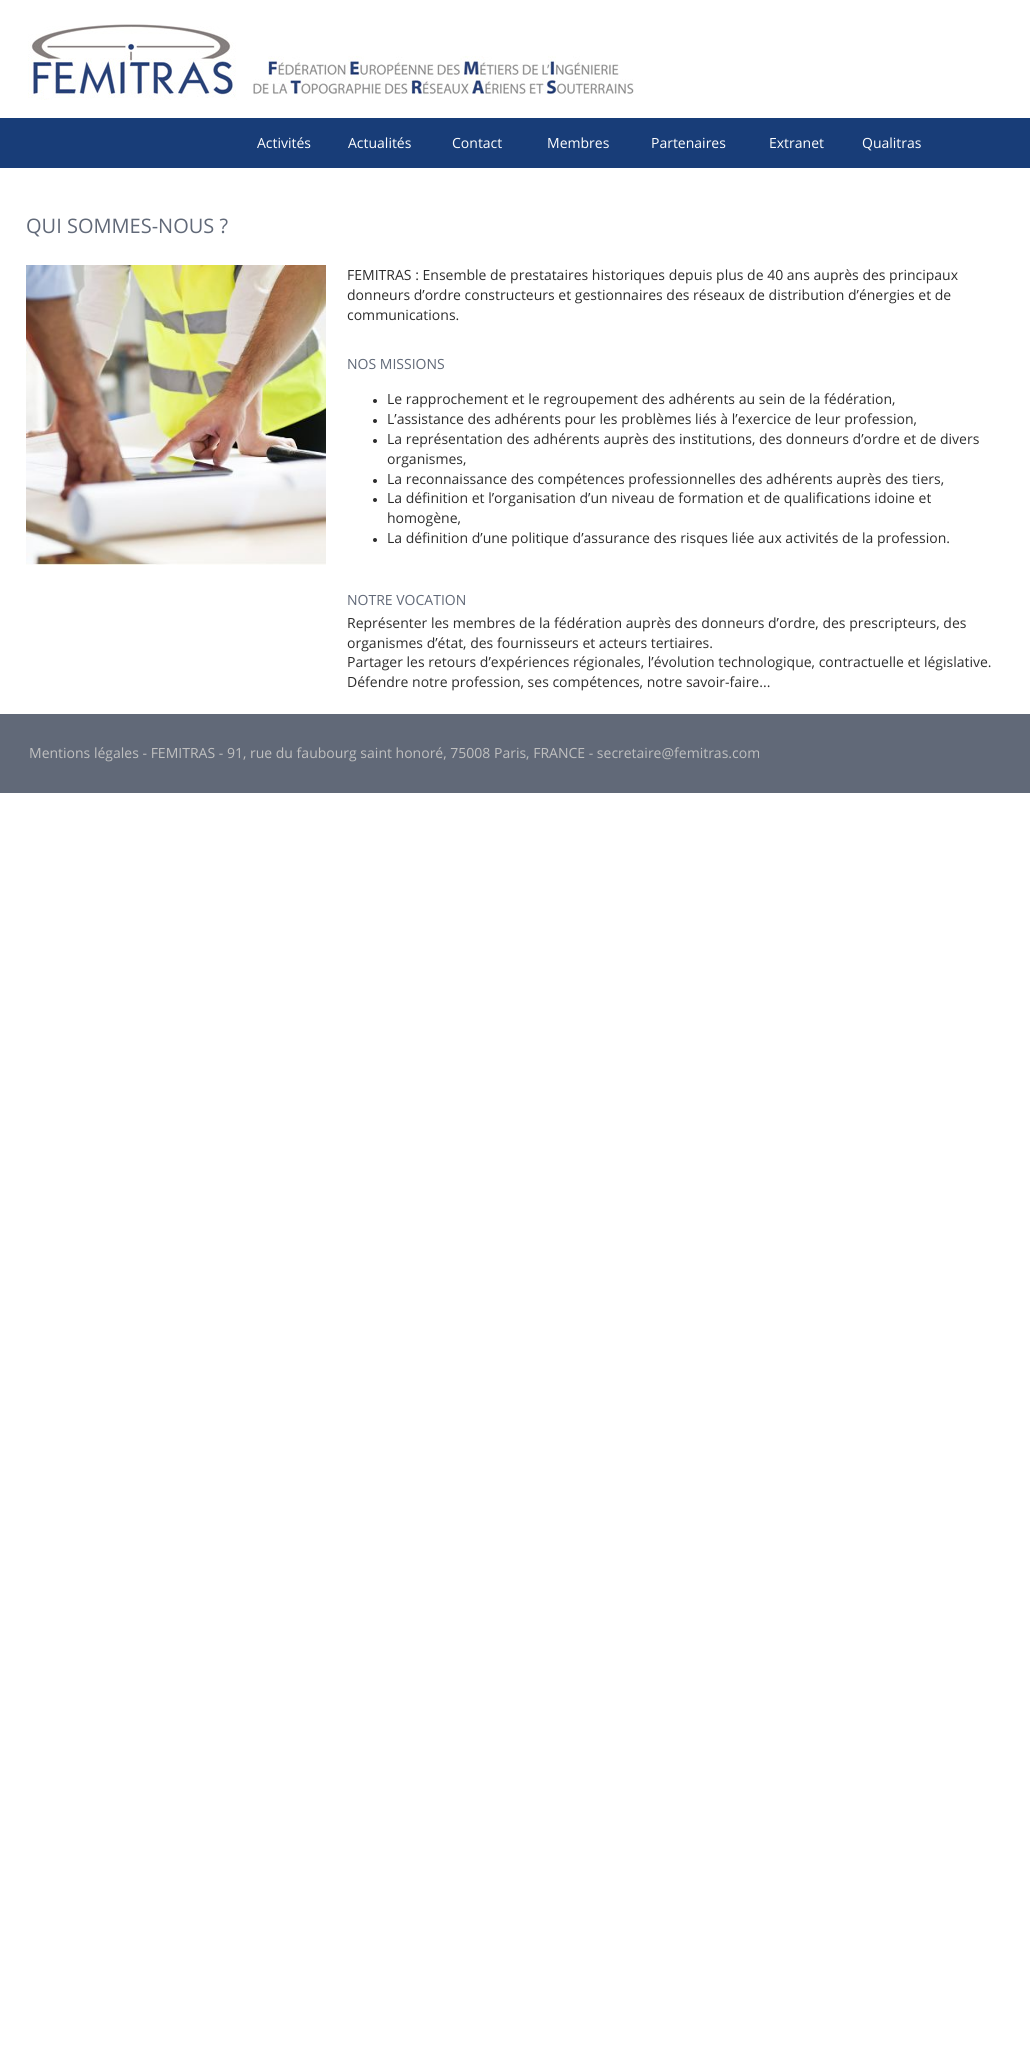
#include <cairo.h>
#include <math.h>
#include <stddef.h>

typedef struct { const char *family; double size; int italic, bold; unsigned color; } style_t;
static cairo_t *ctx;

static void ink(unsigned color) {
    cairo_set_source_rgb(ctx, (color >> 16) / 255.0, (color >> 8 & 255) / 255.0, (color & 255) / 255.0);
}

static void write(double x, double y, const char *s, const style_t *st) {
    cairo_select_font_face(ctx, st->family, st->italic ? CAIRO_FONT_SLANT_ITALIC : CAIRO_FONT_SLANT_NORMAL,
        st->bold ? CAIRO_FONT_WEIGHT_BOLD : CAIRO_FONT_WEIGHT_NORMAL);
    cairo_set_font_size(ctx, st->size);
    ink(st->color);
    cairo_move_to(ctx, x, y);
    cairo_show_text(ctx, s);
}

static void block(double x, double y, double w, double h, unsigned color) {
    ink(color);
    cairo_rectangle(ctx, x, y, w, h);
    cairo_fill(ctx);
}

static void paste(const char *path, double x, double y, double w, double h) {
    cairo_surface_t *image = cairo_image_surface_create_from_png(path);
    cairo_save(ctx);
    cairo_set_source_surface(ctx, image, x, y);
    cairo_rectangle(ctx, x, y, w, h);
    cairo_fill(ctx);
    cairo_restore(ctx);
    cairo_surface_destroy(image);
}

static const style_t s1 = {"Open Sans", 14, 0, 0, 0xffffff};
static const style_t s2 = {"Open Sans", 20, 0, 0, 0x616978};
static const style_t s3 = {"Open Sans", 14, 0, 0, 0x2d2d2d};
static const style_t s4 = {"Open Sans", 14, 0, 0, 0x616978};
static const style_t s5 = {"Open Sans", 14, 0, 0, 0xc0c0c0};

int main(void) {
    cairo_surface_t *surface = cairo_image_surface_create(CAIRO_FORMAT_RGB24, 1030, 2048);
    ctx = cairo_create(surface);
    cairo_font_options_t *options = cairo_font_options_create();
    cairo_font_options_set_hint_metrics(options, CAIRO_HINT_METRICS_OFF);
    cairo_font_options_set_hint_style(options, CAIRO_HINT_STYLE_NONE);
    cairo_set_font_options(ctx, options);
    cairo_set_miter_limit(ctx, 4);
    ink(0xffffff);
    cairo_paint(ctx);
    paste("pic1.png", 28, 24, 209, 76);
    paste("pic2.png", 253, 56, 381, 39);
    block(0, 118, 1030, 50, 0x183d78);
    write(257, 148, "Activités", &s1);
    write(348, 148, "Actualités", &s1);
    write(452, 148, "Contact", &s1);
    write(547, 148, "Membres", &s1);
    write(651, 148, "Partenaires", &s1);
    write(769, 148, "Extranet", &s1);
    write(862, 148, "Qualitras", &s1);
    write(26, 233, "QUI SOMMES-NOUS ?", &s2);
    paste("pic3.png", 26, 265, 300, 300);
    write(347, 280, "FEMITRAS : Ensemble de prestataires historiques depuis plus de 40 ans auprès des principaux", &s3);
    write(347, 300, "donneurs d’ordre constructeurs et gestionnaires des réseaux de distribution d’énergies et de", &s3);
    write(347, 320, "communications.", &s3);
    write(347, 369, "NOS MISSIONS", &s4);
    ink(0x2d2d2d);
    cairo_new_path(ctx);
    cairo_arc(ctx, 375, 401, 2, 0, 2 * M_PI);
    cairo_fill(ctx);
    write(387, 404, "Le rapprochement et le regroupement des adhérents au sein de la fédération,", &s3);
    cairo_new_path(ctx);
    cairo_arc(ctx, 375, 421, 2, 0, 2 * M_PI);
    cairo_fill(ctx);
    write(387, 424, "L’assistance des adhérents pour les problèmes liés à l’exercice de leur profession,", &s3);
    cairo_new_path(ctx);
    cairo_arc(ctx, 375, 441, 2, 0, 2 * M_PI);
    cairo_fill(ctx);
    write(387, 444, "La représentation des adhérents auprès des institutions, des donneurs d’ordre et de divers", &s3);
    write(387, 464, "organismes,", &s3);
    cairo_new_path(ctx);
    cairo_arc(ctx, 375, 481, 2, 0, 2 * M_PI);
    cairo_fill(ctx);
    write(387, 484, "La reconnaissance des compétences professionnelles des adhérents auprès des tiers,", &s3);
    cairo_new_path(ctx);
    cairo_arc(ctx, 375, 500, 2, 0, 2 * M_PI);
    cairo_fill(ctx);
    write(387, 503, "La définition et l’organisation d’un niveau de formation et de qualifications idoine et", &s3);
    write(387, 523, "homogène,", &s3);
    cairo_new_path(ctx);
    cairo_arc(ctx, 375, 540, 2, 0, 2 * M_PI);
    cairo_fill(ctx);
    write(387, 543, "La définition d’une politique d’assurance des risques liée aux activités de la profession.", &s3);
    write(347, 605, "NOTRE VOCATION", &s4);
    write(347, 628, "Représenter les membres de la fédération auprès des donneurs d’ordre, des prescripteurs, des", &s3);
    write(347, 648, "organismes d’état, des fournisseurs et acteurs tertiaires.", &s3);
    write(347, 667, "Partager les retours d’expériences régionales, l’évolution technologique, contractuelle et législative.", &s3);
    write(347, 687, "Défendre notre profession, ses compétences, notre savoir-faire...", &s3);
    block(0, 714, 1030, 79, 0x616978);
    write(29, 758, "Mentions légales - FEMITRAS - 91, rue du faubourg saint honoré, 75008 Paris, FRANCE - secretaire@femitras.com", &s5);
    cairo_surface_write_to_png(surface, "screenshot.png");
    cairo_font_options_destroy(options);
    cairo_destroy(ctx);
    cairo_surface_destroy(surface);
    return 0;
}
